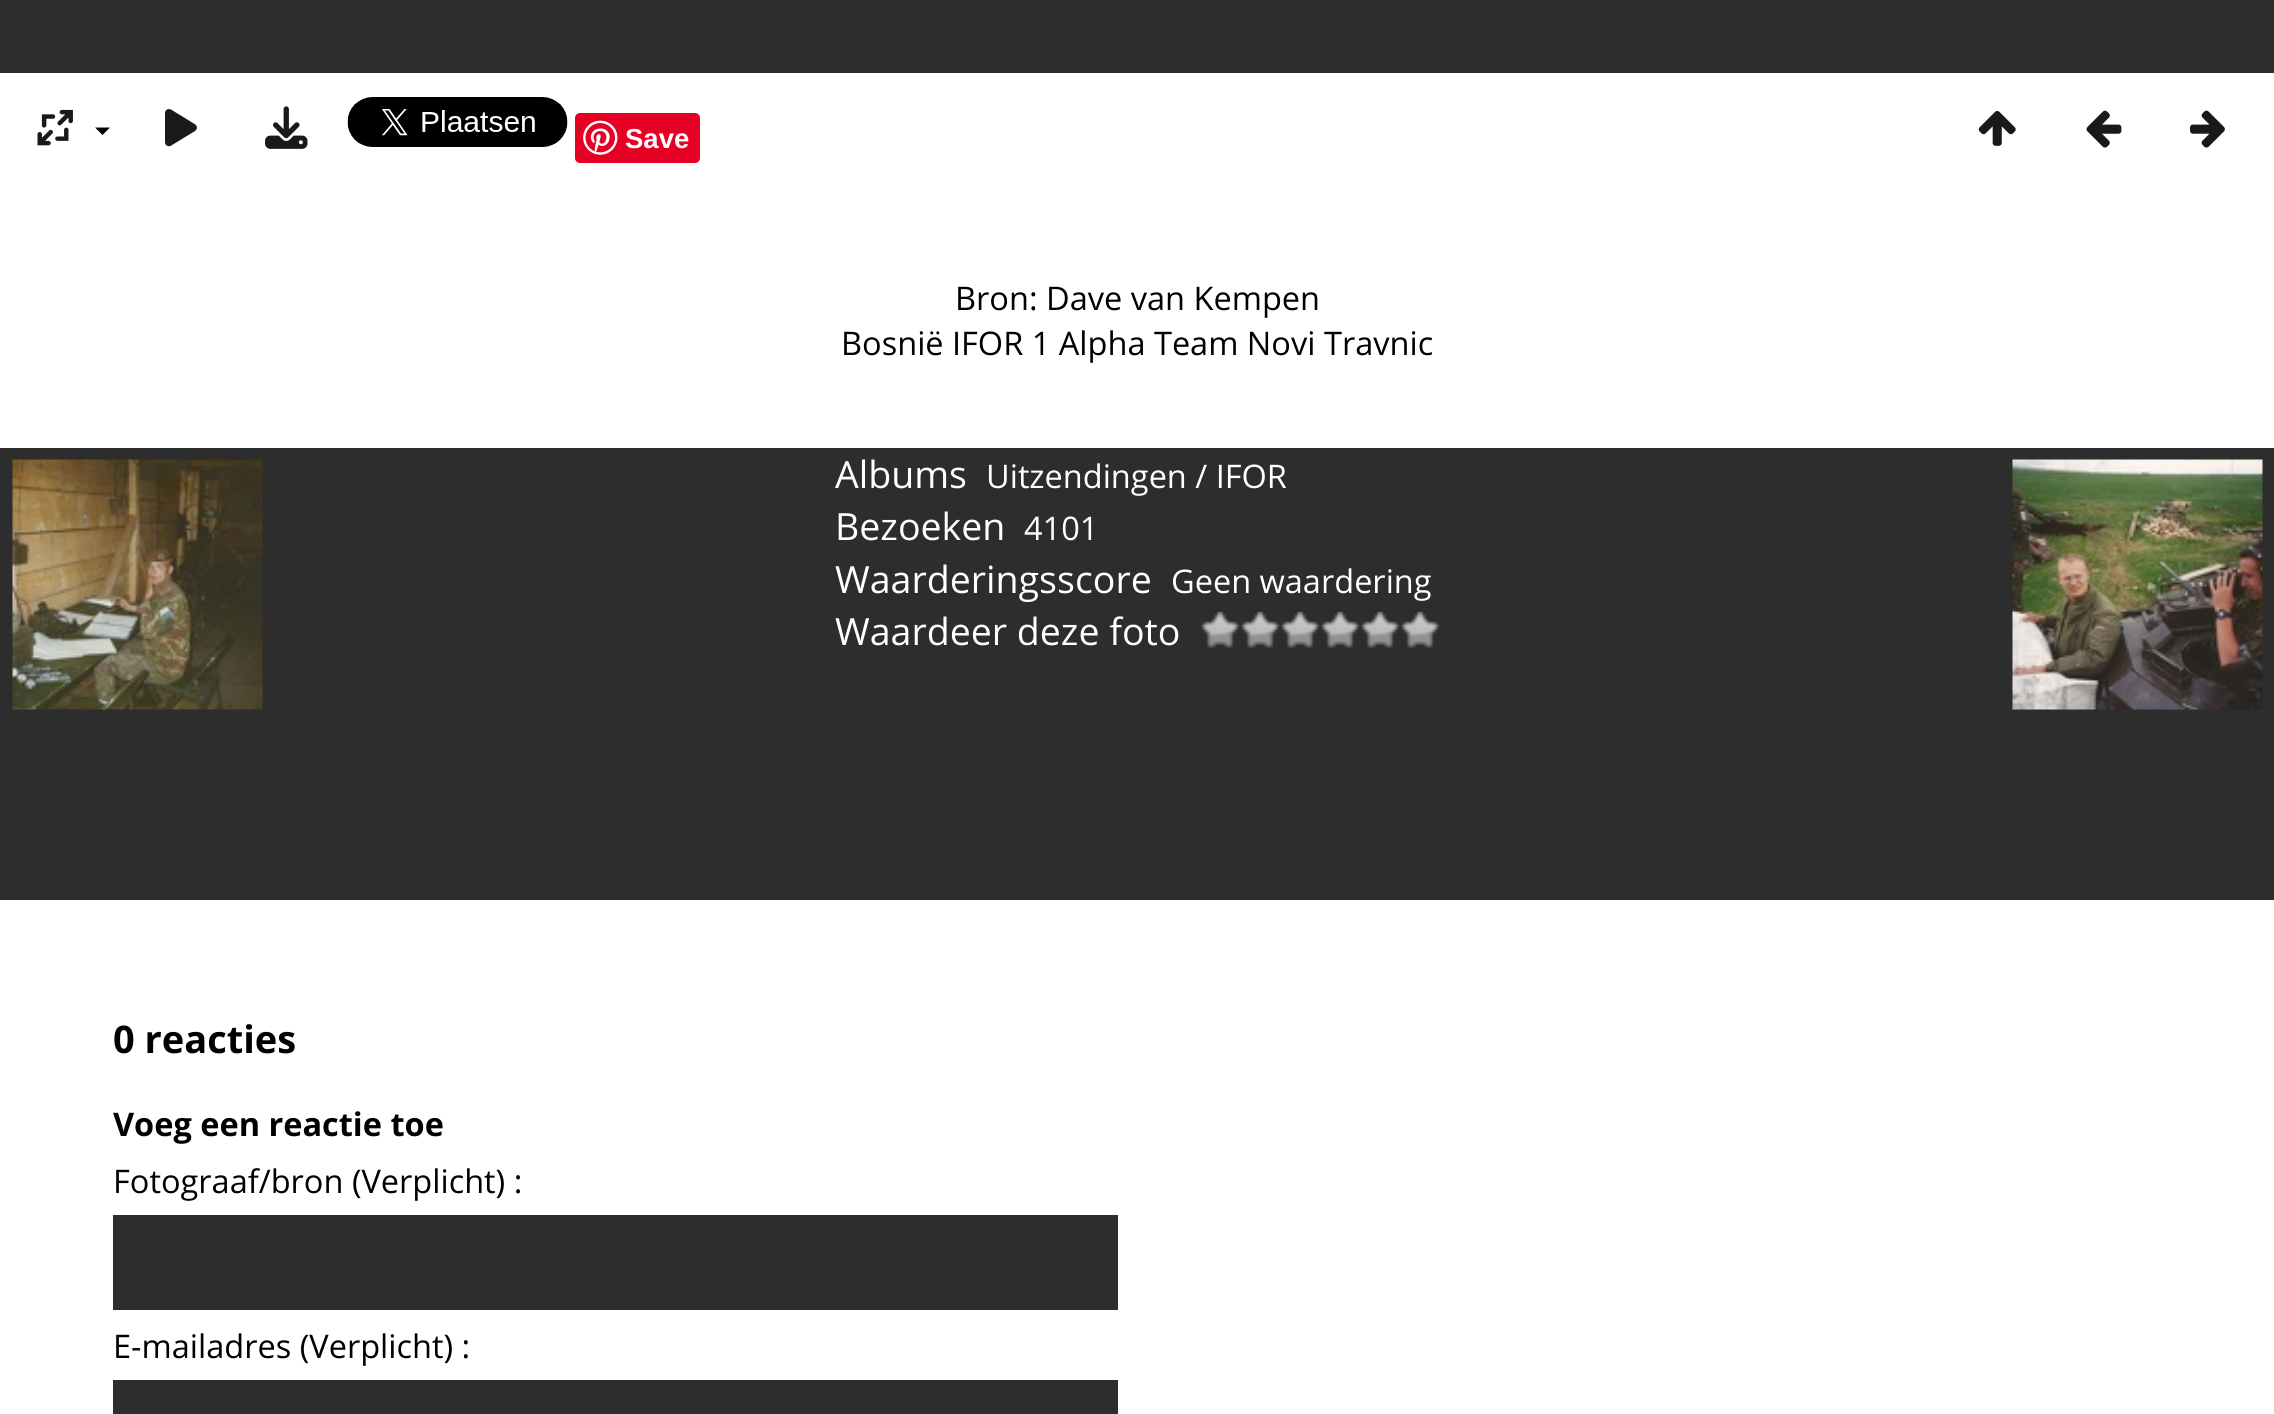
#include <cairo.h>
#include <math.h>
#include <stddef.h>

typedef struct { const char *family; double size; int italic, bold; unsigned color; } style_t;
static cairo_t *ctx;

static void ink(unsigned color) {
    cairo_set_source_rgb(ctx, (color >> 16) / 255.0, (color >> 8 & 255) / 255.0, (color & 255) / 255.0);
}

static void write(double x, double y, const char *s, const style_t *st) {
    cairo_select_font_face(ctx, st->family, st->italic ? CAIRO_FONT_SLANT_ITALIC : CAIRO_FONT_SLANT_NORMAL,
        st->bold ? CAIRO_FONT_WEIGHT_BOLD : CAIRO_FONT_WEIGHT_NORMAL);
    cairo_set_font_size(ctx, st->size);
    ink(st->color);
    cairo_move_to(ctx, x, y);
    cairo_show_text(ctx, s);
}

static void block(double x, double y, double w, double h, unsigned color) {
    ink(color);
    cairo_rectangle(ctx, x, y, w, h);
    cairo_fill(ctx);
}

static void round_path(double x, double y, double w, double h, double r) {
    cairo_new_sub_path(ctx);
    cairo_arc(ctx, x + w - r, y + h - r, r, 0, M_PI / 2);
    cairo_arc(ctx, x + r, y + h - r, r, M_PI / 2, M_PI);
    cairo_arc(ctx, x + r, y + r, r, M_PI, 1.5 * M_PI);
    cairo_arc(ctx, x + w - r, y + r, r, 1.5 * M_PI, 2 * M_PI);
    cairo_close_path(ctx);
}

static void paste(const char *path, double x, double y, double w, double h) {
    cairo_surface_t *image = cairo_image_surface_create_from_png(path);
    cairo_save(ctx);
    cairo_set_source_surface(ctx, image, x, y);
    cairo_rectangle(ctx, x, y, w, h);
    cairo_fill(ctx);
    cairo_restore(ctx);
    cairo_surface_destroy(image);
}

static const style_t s1 = {"Liberation Sans", 27.5, 0, 1, 0xffffff};
static const style_t s2 = {"Open Sans", 32.5, 0, 0, 0x000000};
static const style_t s3 = {"Open Sans", 37.5, 0, 0, 0xffffff};
static const style_t s4 = {"Open Sans", 32.5, 0, 0, 0xffffff};
static const style_t s5 = {"Open Sans", 38, 0, 1, 0x000000};
static const style_t s6 = {"Open Sans", 32.5, 0, 1, 0x000000};

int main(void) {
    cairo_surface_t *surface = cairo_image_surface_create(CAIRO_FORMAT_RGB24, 2274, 1414);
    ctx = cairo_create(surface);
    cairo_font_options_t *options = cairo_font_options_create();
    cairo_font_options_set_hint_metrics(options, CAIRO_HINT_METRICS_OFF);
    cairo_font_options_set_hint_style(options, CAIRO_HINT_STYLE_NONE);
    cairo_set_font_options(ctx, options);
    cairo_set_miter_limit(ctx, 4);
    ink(0xffffff);
    cairo_paint(ctx);
    block(0, 0, 2274, 73, 0x2d2d2d);
    paste("pic1.png", 37, 109, 36, 37);
    ink(0x000000);
    cairo_new_path(ctx);
    cairo_move_to(ctx, 95, 127.5);
    cairo_line_to(ctx, 110, 127.5);
    cairo_line_to(ctx, 102.5, 135);
    cairo_close_path(ctx);
    cairo_fill(ctx);
    paste("pic2.png", 165, 109, 32, 38);
    paste("pic3.png", 265, 106, 43, 43);
    paste("pic4.png", 347, 97, 221, 50);
    ink(0xe60023);
    round_path(575, 113, 125, 50, 5);
    cairo_fill(ctx);
    paste("pic5.png", 583, 120, 35, 35);
    write(625, 148, "Save", &s1);
    paste("pic6.png", 1978, 110, 38, 36);
    paste("pic7.png", 2086, 110, 36, 38);
    paste("pic8.png", 2190, 110, 35, 38);
    write(955, 310, "Bron: Dave van Kempen", &s2);
    write(841, 355, "Bosnië IFOR 1 Alpha Team Novi Travnic", &s2);
    block(0, 448, 2274, 452, 0x2d2d2d);
    paste("pic9.png", 12, 459, 251, 251);
    paste("pic10.png", 2012, 459, 251, 251);
    write(835, 488, "Albums", &s3);
    write(986, 488, "Uitzendingen / IFOR", &s4);
    write(835, 540, "Bezoeken", &s3);
    write(1024, 540, "4101", &s4);
    write(835, 593, "Waarderingsscore", &s3);
    write(1171, 593, "Geen waardering", &s4);
    write(835, 645, "Waardeer deze foto", &s3);
    paste("pic11.png", 1200, 612, 40, 36);
    paste("pic12.png", 1240, 612, 40, 36);
    paste("pic11.png", 1280, 612, 40, 36);
    paste("pic11.png", 1320, 612, 40, 36);
    paste("pic11.png", 1360, 612, 40, 36);
    paste("pic11.png", 1400, 612, 40, 36);
    write(113, 1053, "0 reacties", &s5);
    write(113, 1136, "Voeg een reactie toe", &s6);
    write(113, 1193, "Fotograaf/bron (Verplicht) :", &s2);
    block(113, 1215, 1005, 95, 0x2d2d2d);
    write(113, 1358, "E-mailadres (Verplicht) :", &s2);
    block(113, 1380, 1005, 34, 0x2d2d2d);
    cairo_surface_write_to_png(surface, "screenshot.png");
    cairo_font_options_destroy(options);
    cairo_destroy(ctx);
    cairo_surface_destroy(surface);
    return 0;
}
